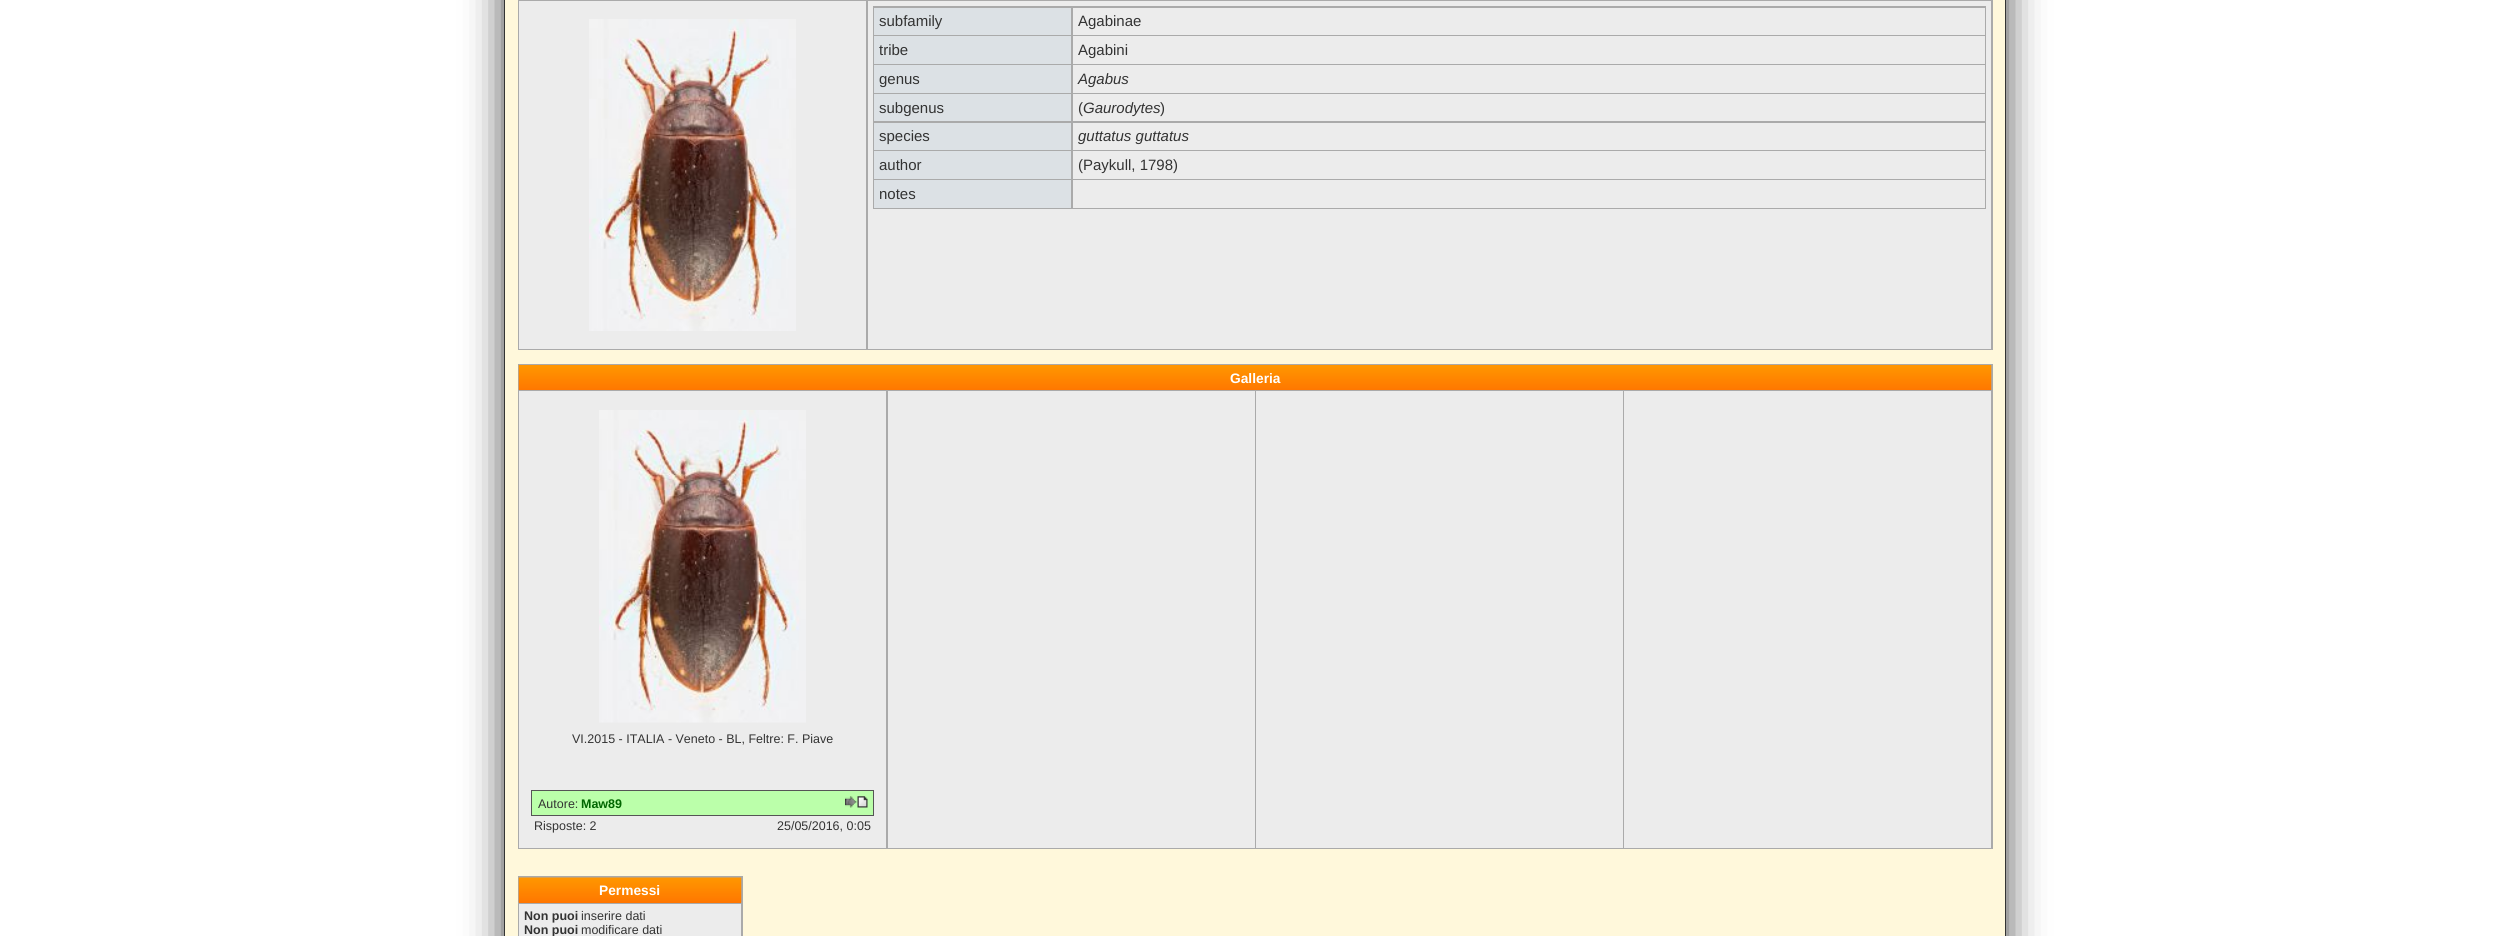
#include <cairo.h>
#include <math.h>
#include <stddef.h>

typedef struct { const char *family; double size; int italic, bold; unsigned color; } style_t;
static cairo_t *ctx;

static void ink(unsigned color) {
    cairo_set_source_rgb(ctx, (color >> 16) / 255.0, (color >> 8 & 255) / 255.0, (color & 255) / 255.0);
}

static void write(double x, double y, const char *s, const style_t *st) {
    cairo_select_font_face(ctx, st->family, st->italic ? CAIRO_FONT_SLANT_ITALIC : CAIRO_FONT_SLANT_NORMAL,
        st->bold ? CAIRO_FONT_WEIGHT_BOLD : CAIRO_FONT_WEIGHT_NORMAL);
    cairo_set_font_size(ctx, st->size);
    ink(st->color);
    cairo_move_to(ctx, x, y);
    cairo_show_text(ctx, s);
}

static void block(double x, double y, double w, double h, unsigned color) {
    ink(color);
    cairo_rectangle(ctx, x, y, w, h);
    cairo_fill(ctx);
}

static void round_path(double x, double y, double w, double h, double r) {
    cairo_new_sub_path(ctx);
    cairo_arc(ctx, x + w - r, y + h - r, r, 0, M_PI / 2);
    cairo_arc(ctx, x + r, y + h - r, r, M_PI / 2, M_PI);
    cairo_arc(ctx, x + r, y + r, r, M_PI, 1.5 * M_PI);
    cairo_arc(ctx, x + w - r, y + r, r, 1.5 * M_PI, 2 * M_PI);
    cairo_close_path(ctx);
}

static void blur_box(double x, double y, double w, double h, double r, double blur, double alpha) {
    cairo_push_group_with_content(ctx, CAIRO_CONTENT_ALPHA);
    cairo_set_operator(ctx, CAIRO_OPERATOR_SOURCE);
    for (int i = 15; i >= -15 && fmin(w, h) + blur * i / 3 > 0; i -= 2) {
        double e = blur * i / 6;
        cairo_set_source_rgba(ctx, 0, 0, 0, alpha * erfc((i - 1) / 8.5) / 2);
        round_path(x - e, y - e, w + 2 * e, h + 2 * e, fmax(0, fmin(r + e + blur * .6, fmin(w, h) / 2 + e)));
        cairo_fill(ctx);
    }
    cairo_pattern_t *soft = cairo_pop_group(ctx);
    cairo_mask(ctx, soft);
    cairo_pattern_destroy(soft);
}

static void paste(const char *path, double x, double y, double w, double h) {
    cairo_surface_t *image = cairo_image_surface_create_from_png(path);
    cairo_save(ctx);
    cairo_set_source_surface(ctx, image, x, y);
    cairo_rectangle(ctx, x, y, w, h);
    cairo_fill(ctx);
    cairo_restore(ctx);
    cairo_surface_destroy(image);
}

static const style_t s1 = {"Liberation Sans", 15, 0, 0, 0x333333};
static const style_t s2 = {"Liberation Sans", 15, 1, 0, 0x333333};
static const style_t s3 = {"Liberation Sans", 13.75, 0, 1, 0xffffff};
static const style_t s4 = {"Liberation Sans", 12.5, 0, 0, 0x333333};
static const style_t s5 = {"Liberation Sans", 12.5, 0, 1, 0x006600};
static const style_t s6 = {"Liberation Sans", 12.5, 0, 1, 0x333333};

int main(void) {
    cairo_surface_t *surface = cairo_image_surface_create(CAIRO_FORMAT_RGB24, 2510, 936);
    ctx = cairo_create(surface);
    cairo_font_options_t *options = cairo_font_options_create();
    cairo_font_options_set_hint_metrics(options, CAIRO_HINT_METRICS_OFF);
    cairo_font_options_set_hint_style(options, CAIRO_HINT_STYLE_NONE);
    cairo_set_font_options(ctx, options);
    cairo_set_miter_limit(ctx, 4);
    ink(0xffffff);
    cairo_paint(ctx);
    ink(0x444444);
    blur_box(504, -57, 1502, 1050, 0, 19, 1);
    block(505, 0, 1500, 936, 0xfff8db);
    block(2005, 0, 1, 936, 0x333333);
    block(504, 0, 1, 936, 0x333333);
    block(518, 0, 1475, 350, 0xaaaaaa);
    block(519, 1, 347, 348, 0xececec);
    paste("pic1.png", 589, 19, 207, 312);
    block(868, 1, 1123, 348, 0xececec);
    block(873, 6, 1113, 203, 0xaaaaaa);
    block(874, 8, 197, 27, 0xdce1e5);
    write(879, 26, "subfamily", &s1);
    block(1073, 8, 912, 27, 0xececec);
    write(1078, 26, "Agabinae", &s1);
    block(874, 36, 197, 28, 0xdce1e5);
    write(879, 55, "tribe", &s1);
    block(1073, 36, 912, 28, 0xececec);
    write(1078, 55, "Agabini", &s1);
    block(874, 65, 197, 28, 0xdce1e5);
    write(879, 84, "genus", &s1);
    block(1073, 65, 912, 28, 0xececec);
    write(1078, 84, "Agabus", &s2);
    block(874, 94, 197, 27, 0xdce1e5);
    write(879, 113, "subgenus", &s1);
    block(1073, 94, 912, 27, 0xececec);
    write(1078, 113, "(", &s1);
    write(1083, 113, "Gaurodytes", &s2);
    write(1160, 113, ")", &s1);
    block(874, 123, 197, 27, 0xdce1e5);
    write(879, 141, "species", &s1);
    block(1073, 123, 912, 27, 0xececec);
    write(1078, 141, "guttatus guttatus", &s2);
    block(874, 151, 197, 28, 0xdce1e5);
    write(879, 170, "author", &s1);
    block(1073, 151, 912, 28, 0xececec);
    write(1078, 170, "(Paykull, 1798)", &s1);
    block(874, 180, 197, 28, 0xdce1e5);
    write(879, 199, "notes", &s1);
    block(1073, 180, 912, 28, 0xececec);
    block(518, 364, 1475, 485, 0xaaaaaa);
    paste("pic2.png", 518, 365, 1474, 25);
    write(1230, 383, "Galleria", &s3);
    block(519, 391, 367, 457, 0xececec);
    paste("pic3.png", 599, 410, 207, 313);
    write(572, 743, "VI.2015 - ITALIA - Veneto - BL, Feltre: F. Piave", &s4);
    ink(0xbbffaa);
    cairo_rectangle(ctx, 531.5, 790.5, 342, 25);
    cairo_fill_preserve(ctx);
    ink(0x555555);
    cairo_set_line_width(ctx, 1);
    cairo_stroke(ctx);
    write(538, 808, "Autore:", &s4);
    write(581, 808, "Maw89", &s5);
    paste("pic4.png", 845, 796, 23, 12);
    write(534, 830, "Risposte: 2", &s4);
    write(777, 830, "25/05/2016, 0:05", &s4);
    block(888, 391, 367, 457, 0xececec);
    block(1256, 391, 367, 457, 0xececec);
    block(1624, 391, 367, 457, 0xececec);
    block(518, 876, 225, 60, 0xaaaaaa);
    block(519, 902, 222, 1, 0xff7400);
    paste("pic5.png", 518, 877, 224, 26);
    write(599, 895, "Permessi", &s3);
    block(519, 904, 222, 32, 0xececec);
    write(524, 920, "Non puoi", &s6);
    write(581, 920, "inserire dati", &s4);
    write(524, 934, "Non puoi", &s6);
    write(581, 934, "modificare dati", &s4);
    cairo_surface_write_to_png(surface, "screenshot.png");
    cairo_font_options_destroy(options);
    cairo_destroy(ctx);
    cairo_surface_destroy(surface);
    return 0;
}
